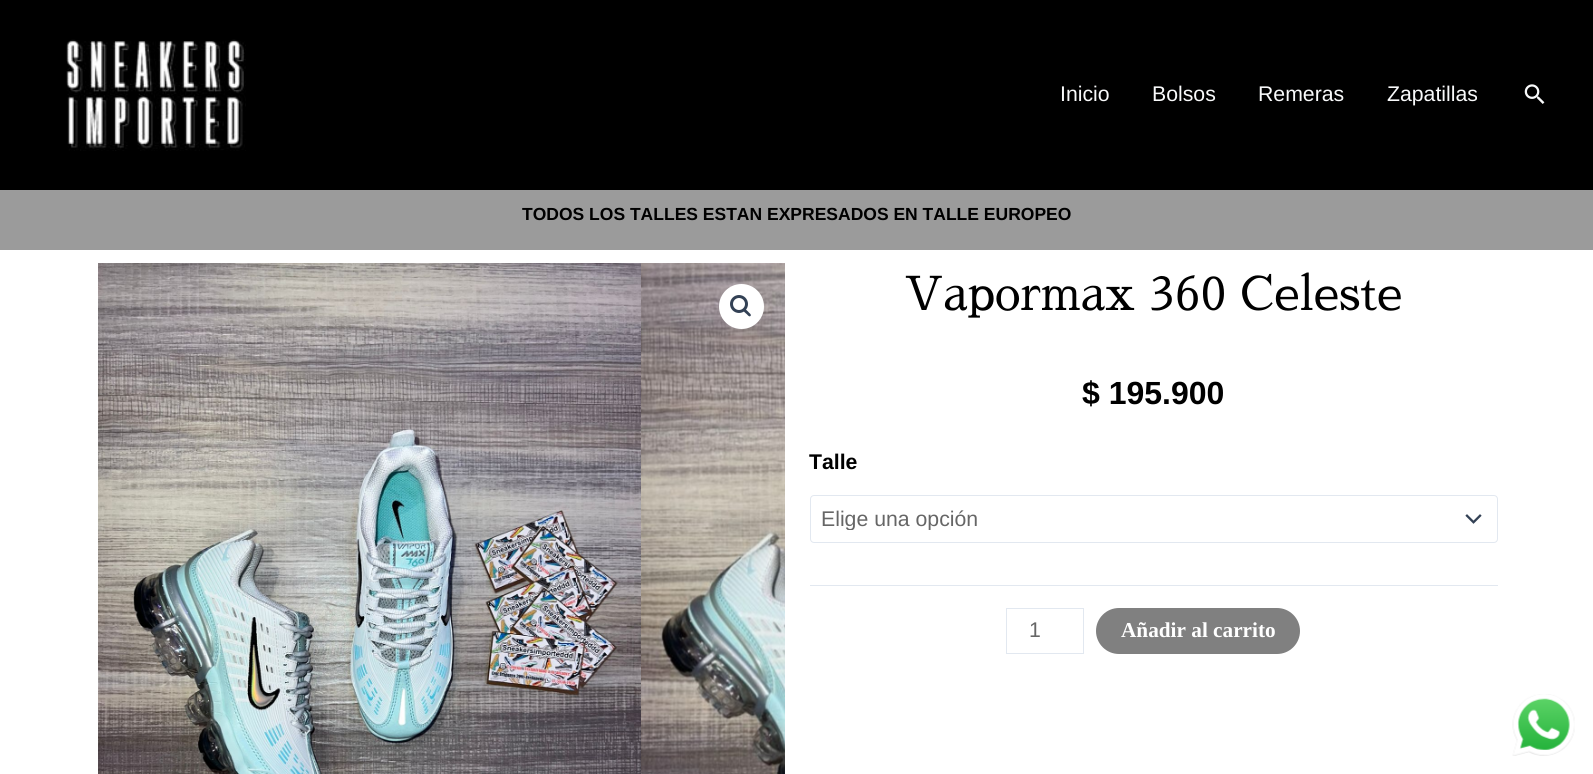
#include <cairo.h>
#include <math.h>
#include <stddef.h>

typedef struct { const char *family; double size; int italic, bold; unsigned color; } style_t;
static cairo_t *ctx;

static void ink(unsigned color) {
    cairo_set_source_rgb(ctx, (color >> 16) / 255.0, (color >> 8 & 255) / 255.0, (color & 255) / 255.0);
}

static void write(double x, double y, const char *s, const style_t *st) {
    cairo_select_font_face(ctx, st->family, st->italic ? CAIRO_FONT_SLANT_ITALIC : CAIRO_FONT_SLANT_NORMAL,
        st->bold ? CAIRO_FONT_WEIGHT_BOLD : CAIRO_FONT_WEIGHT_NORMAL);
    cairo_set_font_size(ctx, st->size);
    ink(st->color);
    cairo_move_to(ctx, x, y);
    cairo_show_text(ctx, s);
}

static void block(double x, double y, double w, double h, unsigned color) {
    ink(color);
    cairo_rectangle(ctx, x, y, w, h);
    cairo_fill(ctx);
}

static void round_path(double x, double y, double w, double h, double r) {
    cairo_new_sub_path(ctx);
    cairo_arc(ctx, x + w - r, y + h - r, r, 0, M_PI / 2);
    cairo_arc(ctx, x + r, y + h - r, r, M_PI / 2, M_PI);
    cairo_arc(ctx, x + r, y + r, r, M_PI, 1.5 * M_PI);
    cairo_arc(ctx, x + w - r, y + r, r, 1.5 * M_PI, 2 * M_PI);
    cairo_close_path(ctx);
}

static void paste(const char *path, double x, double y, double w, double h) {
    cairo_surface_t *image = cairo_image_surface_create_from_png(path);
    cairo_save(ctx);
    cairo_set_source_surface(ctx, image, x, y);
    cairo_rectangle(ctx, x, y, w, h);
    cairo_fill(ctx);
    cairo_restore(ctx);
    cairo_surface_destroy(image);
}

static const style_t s1 = {"Liberation Sans", 21.25, 0, 0, 0xf9fafb};
static const style_t s2 = {"Liberation Sans", 17.5, 0, 1, 0x000000};
static const style_t s3 = {"Sawarabi Mincho", 46.25, 0, 0, 0x000000};
static const style_t s4 = {"Liberation Sans", 32, 0, 1, 0x000000};
static const style_t s5 = {"Liberation Sans", 21.25, 0, 1, 0x000000};
static const style_t s6 = {"Liberation Sans", 21.25, 0, 0, 0x666666};
static const style_t s7 = {"Liberation Serif", 21.25, 0, 1, 0xffffff};

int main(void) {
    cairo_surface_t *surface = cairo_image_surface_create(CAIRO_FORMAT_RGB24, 1593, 774);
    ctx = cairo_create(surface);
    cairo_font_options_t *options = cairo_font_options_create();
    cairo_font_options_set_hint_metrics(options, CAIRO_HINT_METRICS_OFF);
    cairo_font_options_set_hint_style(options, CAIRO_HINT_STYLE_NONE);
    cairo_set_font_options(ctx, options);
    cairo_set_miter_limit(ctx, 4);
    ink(0xffffff);
    cairo_paint(ctx);
    block(0, 0, 1593, 190, 0x000000);
    paste("pic1.png", 66, 39, 180, 112);
    write(1060, 101, "Inicio", &s1);
    write(1152, 101, "Bolsos", &s1);
    write(1258, 101, "Remeras", &s1);
    write(1387, 101, "Zapatillas", &s1);
    paste("pic2.png", 1524, 84, 21, 20);
    block(0, 190, 1593, 60, 0x9b9b9b);
    write(522, 220, "TODOS LOS TALLES ESTAN EXPRESADOS EN TALLE EUROPEO", &s2);
    paste("pic3.png", 98, 263, 543, 511);
    paste("pic4.png", 641, 263, 144, 511);
    ink(0xffffff);
    cairo_arc(ctx, 741.5, 306.5, 22.5, 0, 2 * M_PI);
    cairo_fill(ctx);
    cairo_arc(ctx, 739, 304, 7.5, 0, 2 * M_PI);
    ink(0x334155);
    cairo_set_line_width(ctx, 3);
    cairo_stroke(ctx);
    cairo_new_path(ctx);
    cairo_move_to(ctx, 743.5, 309);
    cairo_curve_to(ctx, 745, 307.5, 747, 311, 748, 311.5);
    cairo_curve_to(ctx, 748.5, 312.5, 752, 314.5, 750.5, 316);
    cairo_curve_to(ctx, 749, 317.5, 747, 314, 746, 313.5);
    cairo_curve_to(ctx, 745, 312.5, 742, 310.5, 743.5, 309);
    cairo_close_path(ctx);
    cairo_fill(ctx);
    write(904, 310, "Vapormax 360 Celeste", &s3);
    write(1082, 404, "$ 195.900", &s4);
    block(810, 585, 688, 1, 0xe2e8f0);
    write(809, 469, "Talle", &s5);
    paste("pic5.png", 1465, 514, 17, 10);
    round_path(810.5, 495.5, 687, 47, 3.5);
    ink(0xe2e8f0);
    cairo_set_line_width(ctx, 1);
    cairo_stroke(ctx);
    cairo_save(ctx);
    cairo_rectangle(ctx, 821, 506, 664, 24);
    cairo_clip(ctx);
    write(821, 526, "Elige una opción", &s6);
    cairo_restore(ctx);
    cairo_rectangle(ctx, 1006.5, 608.5, 77, 45);
    cairo_stroke(ctx);
    write(1029, 637, "1", &s6);
    ink(0x808080);
    round_path(1096, 608, 204, 46, 23);
    cairo_fill(ctx);
    write(1121, 637, "Añadir al carrito", &s7);
    paste("pic6.png", 1512, 694, 63, 62);
    cairo_surface_write_to_png(surface, "screenshot.png");
    cairo_font_options_destroy(options);
    cairo_destroy(ctx);
    cairo_surface_destroy(surface);
    return 0;
}
